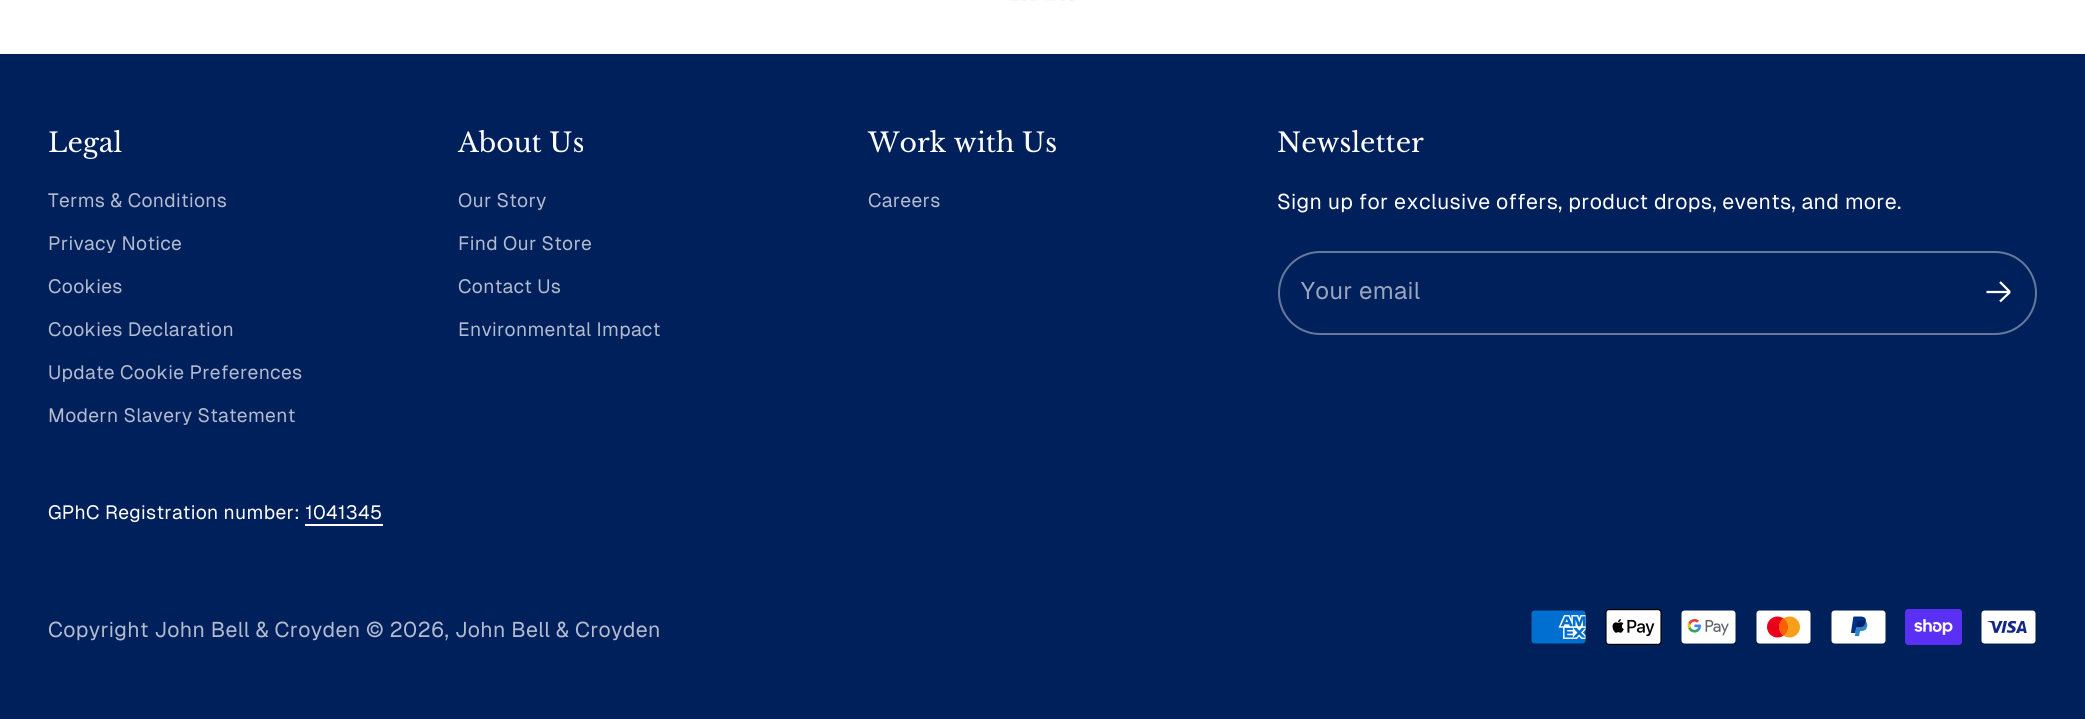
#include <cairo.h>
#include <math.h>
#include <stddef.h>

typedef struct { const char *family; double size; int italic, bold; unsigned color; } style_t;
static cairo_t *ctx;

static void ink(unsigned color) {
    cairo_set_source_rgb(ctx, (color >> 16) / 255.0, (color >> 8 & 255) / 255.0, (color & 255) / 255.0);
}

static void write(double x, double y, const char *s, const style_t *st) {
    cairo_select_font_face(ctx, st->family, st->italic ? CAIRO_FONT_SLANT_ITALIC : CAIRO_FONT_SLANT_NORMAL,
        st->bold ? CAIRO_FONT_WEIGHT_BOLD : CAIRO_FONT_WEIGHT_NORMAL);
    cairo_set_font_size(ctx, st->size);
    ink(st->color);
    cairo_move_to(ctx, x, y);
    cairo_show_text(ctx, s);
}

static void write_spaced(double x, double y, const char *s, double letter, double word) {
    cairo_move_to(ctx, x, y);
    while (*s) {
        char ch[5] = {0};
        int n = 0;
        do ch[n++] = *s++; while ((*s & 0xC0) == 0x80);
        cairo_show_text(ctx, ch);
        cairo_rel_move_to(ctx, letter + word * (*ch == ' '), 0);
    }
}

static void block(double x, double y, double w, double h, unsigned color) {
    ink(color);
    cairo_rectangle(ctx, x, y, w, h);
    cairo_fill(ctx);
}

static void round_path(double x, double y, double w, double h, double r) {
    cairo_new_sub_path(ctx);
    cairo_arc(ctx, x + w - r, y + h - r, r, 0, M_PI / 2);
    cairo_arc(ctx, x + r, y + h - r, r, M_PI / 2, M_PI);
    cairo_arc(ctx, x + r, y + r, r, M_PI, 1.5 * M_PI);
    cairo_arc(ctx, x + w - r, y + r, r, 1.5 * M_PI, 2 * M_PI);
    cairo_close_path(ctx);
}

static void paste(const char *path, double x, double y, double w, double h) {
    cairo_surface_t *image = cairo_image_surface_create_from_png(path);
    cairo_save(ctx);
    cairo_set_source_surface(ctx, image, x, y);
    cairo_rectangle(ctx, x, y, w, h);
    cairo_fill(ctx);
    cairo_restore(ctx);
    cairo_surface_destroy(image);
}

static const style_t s1 = {"Libre Baskerville", 26.75, 0, 0, 0xffffff};

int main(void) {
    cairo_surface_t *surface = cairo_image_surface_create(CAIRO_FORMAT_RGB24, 2085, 719);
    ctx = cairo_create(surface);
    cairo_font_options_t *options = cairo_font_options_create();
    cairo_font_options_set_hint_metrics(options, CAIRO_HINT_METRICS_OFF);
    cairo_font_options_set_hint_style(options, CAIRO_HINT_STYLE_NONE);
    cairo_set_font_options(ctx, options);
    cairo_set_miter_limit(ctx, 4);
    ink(0xffffff);
    cairo_paint(ctx);
    paste("pic1.png", 1009, 0, 65, 1);
    block(0, 54, 2085, 665, 0x00205c);
    write(48, 152, "Legal", &s1);
    cairo_select_font_face(ctx, "Geist", CAIRO_FONT_SLANT_NORMAL, CAIRO_FONT_WEIGHT_NORMAL);
    cairo_set_font_size(ctx, 19.25);
    ink(0xb3bcce);
    write_spaced(48, 207, "Terms & Conditions", 0.3, 0);
    write_spaced(48, 250, "Privacy Notice", 0.3, 0);
    write_spaced(48, 293, "Cookies", 0.3, 0);
    write_spaced(48, 336, "Cookies Declaration", 0.3, 0);
    write_spaced(48, 379, "Update Cookie Preferences", 0.3, 0);
    write_spaced(48, 422, "Modern Slavery Statement", 0.3, 0);
    write(458, 152, "About Us", &s1);
    cairo_select_font_face(ctx, "Geist", CAIRO_FONT_SLANT_NORMAL, CAIRO_FONT_WEIGHT_NORMAL);
    cairo_set_font_size(ctx, 19.25);
    ink(0xb3bcce);
    write_spaced(458, 207, "Our Story", 0.3, 0);
    write_spaced(458, 250, "Find Our Store", 0.3, 0);
    write_spaced(458, 293, "Contact Us", 0.3, 0);
    write_spaced(458, 336, "Environmental Impact", 0.3, 0);
    write(868, 152, "Work with Us", &s1);
    cairo_select_font_face(ctx, "Geist", CAIRO_FONT_SLANT_NORMAL, CAIRO_FONT_WEIGHT_NORMAL);
    cairo_set_font_size(ctx, 19.25);
    ink(0xb3bcce);
    write_spaced(868, 207, "Careers", 0.3, 0);
    write(1277, 152, "Newsletter", &s1);
    cairo_select_font_face(ctx, "Geist", CAIRO_FONT_SLANT_NORMAL, CAIRO_FONT_WEIGHT_NORMAL);
    cairo_set_font_size(ctx, 21.3);
    write_spaced(1277, 209, "Sign up for exclusive offers, product drops, events, and more.", 0.3, 0);
    round_path(1279, 252, 757, 82, 41);
    ink(0x66799d);
    cairo_stroke(ctx);
    cairo_set_font_size(ctx, 24);
    ink(0x99a6be);
    write_spaced(1301, 299, "Your email", 0.3, 0);
    cairo_new_path(ctx);
    cairo_move_to(ctx, 1986.5, 292);
    cairo_line_to(ctx, 2010, 292);
    cairo_move_to(ctx, 2010, 292);
    cairo_line_to(ctx, 2000, 282);
    cairo_move_to(ctx, 2010, 292);
    cairo_line_to(ctx, 2000, 301.5);
    ink(0xffffff);
    cairo_set_line_width(ctx, 2.2);
    cairo_stroke(ctx);
    cairo_set_font_size(ctx, 19.25);
    write_spaced(48, 519, "GPhC Registration number: 1041345", 0.3, 0);
    block(305, 524, 78, 2, 0xffffff);
    cairo_set_font_size(ctx, 21.3);
    ink(0xb3bcce);
    write_spaced(48, 637, "Copyright John Bell & Croyden © 2026, John Bell & Croyden", 0.3, 0);
    paste("pic2.png", 1530, 609, 57, 36);
    paste("pic3.png", 1605, 609, 57, 36);
    paste("pic4.png", 1680, 609, 57, 36);
    paste("pic5.png", 1755, 609, 57, 36);
    paste("pic6.png", 1830, 609, 57, 36);
    paste("pic7.png", 1905, 609, 57, 36);
    paste("pic8.png", 1980, 609, 57, 36);
    cairo_surface_write_to_png(surface, "screenshot.png");
    cairo_font_options_destroy(options);
    cairo_destroy(ctx);
    cairo_surface_destroy(surface);
    return 0;
}
